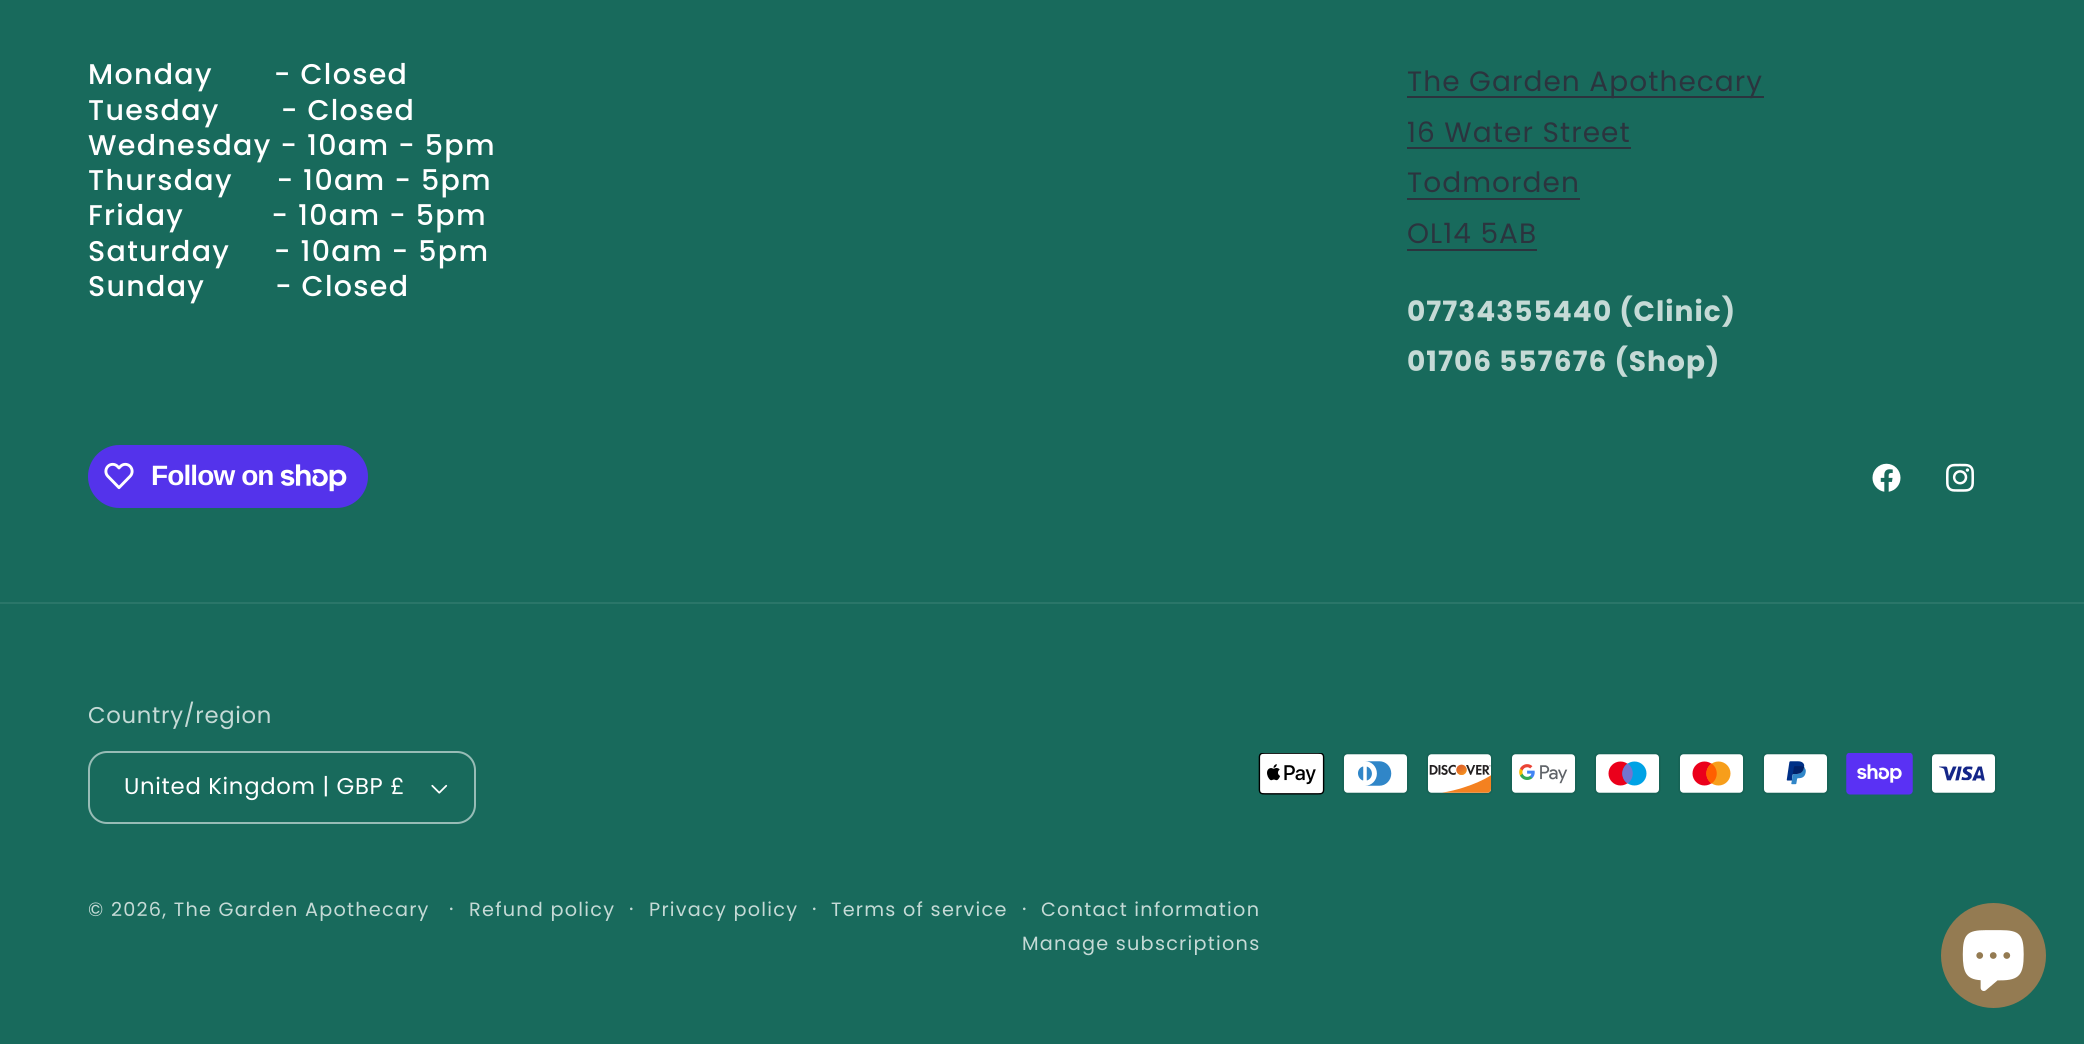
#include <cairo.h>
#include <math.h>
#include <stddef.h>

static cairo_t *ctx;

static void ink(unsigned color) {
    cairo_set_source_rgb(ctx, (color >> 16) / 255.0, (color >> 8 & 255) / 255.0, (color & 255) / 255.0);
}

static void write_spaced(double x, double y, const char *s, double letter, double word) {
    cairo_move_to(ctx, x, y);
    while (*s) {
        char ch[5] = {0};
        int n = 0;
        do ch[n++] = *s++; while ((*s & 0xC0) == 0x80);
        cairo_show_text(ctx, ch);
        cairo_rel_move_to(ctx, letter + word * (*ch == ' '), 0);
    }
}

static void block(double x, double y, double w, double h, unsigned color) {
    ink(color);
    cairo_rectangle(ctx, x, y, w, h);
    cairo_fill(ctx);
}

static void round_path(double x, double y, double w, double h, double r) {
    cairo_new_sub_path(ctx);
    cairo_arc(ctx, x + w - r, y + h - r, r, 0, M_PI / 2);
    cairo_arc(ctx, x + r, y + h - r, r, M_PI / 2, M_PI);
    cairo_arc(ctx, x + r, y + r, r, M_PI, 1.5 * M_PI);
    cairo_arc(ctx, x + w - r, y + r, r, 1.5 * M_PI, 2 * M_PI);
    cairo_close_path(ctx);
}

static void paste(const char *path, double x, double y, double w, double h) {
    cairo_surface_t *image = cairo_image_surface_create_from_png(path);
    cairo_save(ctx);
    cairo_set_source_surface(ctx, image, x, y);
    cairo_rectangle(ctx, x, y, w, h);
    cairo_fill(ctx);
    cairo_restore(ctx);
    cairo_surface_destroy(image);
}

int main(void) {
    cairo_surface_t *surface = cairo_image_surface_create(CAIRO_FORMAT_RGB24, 2084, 1044);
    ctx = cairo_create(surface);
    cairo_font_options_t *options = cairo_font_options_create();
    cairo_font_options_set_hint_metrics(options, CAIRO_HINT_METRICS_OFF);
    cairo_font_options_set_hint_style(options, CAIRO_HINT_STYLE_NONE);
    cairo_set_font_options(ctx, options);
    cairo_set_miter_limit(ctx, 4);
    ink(0x186a5c);
    cairo_paint(ctx);
    cairo_select_font_face(ctx, "Poppins Medium", CAIRO_FONT_SLANT_NORMAL, CAIRO_FONT_WEIGHT_NORMAL);
    cairo_set_font_size(ctx, 28.5);
    ink(0xffffff);
    write_spaced(88, 84, "Monday       - Closed", 1.3, 0);
    write_spaced(88, 120, "Tuesday       - Closed", 1.3, 0);
    write_spaced(88, 155, "Wednesday - 10am - 5pm", 1.3, 0);
    write_spaced(88, 190, "Thursday     - 10am - 5pm", 1.3, 0);
    write_spaced(88, 225, "Friday          - 10am - 5pm", 1.3, 0);
    write_spaced(88, 261, "Saturday     - 10am - 5pm", 1.3, 0);
    write_spaced(88, 296, "Sunday        - Closed", 1.3, 0);
    block(1407, 96, 357, 2, 0x2b343e);
    cairo_select_font_face(ctx, "Poppins", CAIRO_FONT_SLANT_NORMAL, CAIRO_FONT_WEIGHT_NORMAL);
    cairo_set_font_size(ctx, 28);
    write_spaced(1407, 91, "The Garden Apothecary", 1.05, 0);
    write_spaced(1407, 142, "16 Water Street", 1.05, 0);
    block(1407, 147, 224, 2, 0x2b343e);
    write_spaced(1407, 192, "Todmorden", 1.05, 0);
    block(1407, 198, 173, 2, 0x2b343e);
    write_spaced(1407, 243, "OL14 5AB", 1.05, 0);
    block(1407, 249, 130, 2, 0x2b343e);
    cairo_select_font_face(ctx, "Poppins", CAIRO_FONT_SLANT_NORMAL, CAIRO_FONT_WEIGHT_BOLD);
    ink(0xc5dad6);
    write_spaced(1407, 321, "07734355440 (Clinic)", 1.05, 0);
    write_spaced(1407, 371, "01706 557676 (Shop)", 1.05, 0);
    ink(0x5433eb);
    round_path(88, 445, 280, 63, 31.5);
    cairo_fill(ctx);
    paste("pic1.png", 104, 462, 30, 28);
    cairo_select_font_face(ctx, "Liberation Sans", CAIRO_FONT_SLANT_NORMAL, CAIRO_FONT_WEIGHT_BOLD);
    ink(0xffffff);
    write_spaced(151, 485, "Follow on", -0.9, 0);
    paste("pic2.png", 280, 464, 67, 28);
    paste("pic3.png", 1872, 463, 29, 29);
    paste("pic4.png", 1946, 463, 28, 29);
    block(0, 602, 2084, 2, 0x2a7669);
    cairo_select_font_face(ctx, "Poppins", CAIRO_FONT_SLANT_NORMAL, CAIRO_FONT_WEIGHT_NORMAL);
    cairo_set_font_size(ctx, 22.75);
    ink(0xc5dad6);
    write_spaced(88, 723, "Country/region", 0.7, 0);
    paste("pic5.png", 431, 784, 17, 10);
    round_path(89, 752, 386, 71, 18);
    ink(0x97bcb6);
    cairo_stroke(ctx);
    ink(0xffffff);
    write_spaced(124, 794, "United Kingdom | GBP £", 0.7, 0);
    paste("pic6.png", 1258, 753, 67, 42);
    paste("pic7.png", 1342, 753, 67, 42);
    paste("pic8.png", 1426, 753, 67, 42);
    paste("pic9.png", 1510, 753, 67, 42);
    paste("pic10.png", 1594, 753, 67, 42);
    paste("pic11.png", 1678, 753, 67, 42);
    paste("pic12.png", 1762, 753, 67, 42);
    paste("pic13.png", 1846, 753, 67, 42);
    paste("pic14.png", 1930, 753, 67, 42);
    cairo_set_font_size(ctx, 19.25);
    ink(0xc5dad6);
    write_spaced(88, 916, "© 2026, The Garden Apothecary", 1.25, 0);
    cairo_set_font_size(ctx, 21);
    write_spaced(449, 916, "·", 1.25, 0);
    cairo_set_font_size(ctx, 19.25);
    write_spaced(469, 916, "Refund policy", 1.25, 0);
    cairo_set_font_size(ctx, 21);
    write_spaced(629, 916, "·", 1.25, 0);
    cairo_set_font_size(ctx, 19.25);
    write_spaced(649, 916, "Privacy policy", 1.25, 0);
    cairo_set_font_size(ctx, 21);
    write_spaced(812, 916, "·", 1.25, 0);
    cairo_set_font_size(ctx, 19.25);
    write_spaced(831, 916, "Terms of service", 1.25, 0);
    cairo_set_font_size(ctx, 21);
    write_spaced(1022, 916, "·", 1.25, 0);
    cairo_set_font_size(ctx, 19.25);
    write_spaced(1041, 916, "Contact information", 1.25, 0);
    write_spaced(1022, 950, "Manage subscriptions", 1.25, 0);
    ink(0x947b52);
    cairo_new_path(ctx);
    cairo_arc(ctx, 1993.5, 955.5, 52.5, 0, 2 * M_PI);
    cairo_fill(ctx);
    paste("pic15.png", 1962, 930, 62, 61);
    cairo_surface_write_to_png(surface, "screenshot.png");
    cairo_font_options_destroy(options);
    cairo_destroy(ctx);
    cairo_surface_destroy(surface);
    return 0;
}
